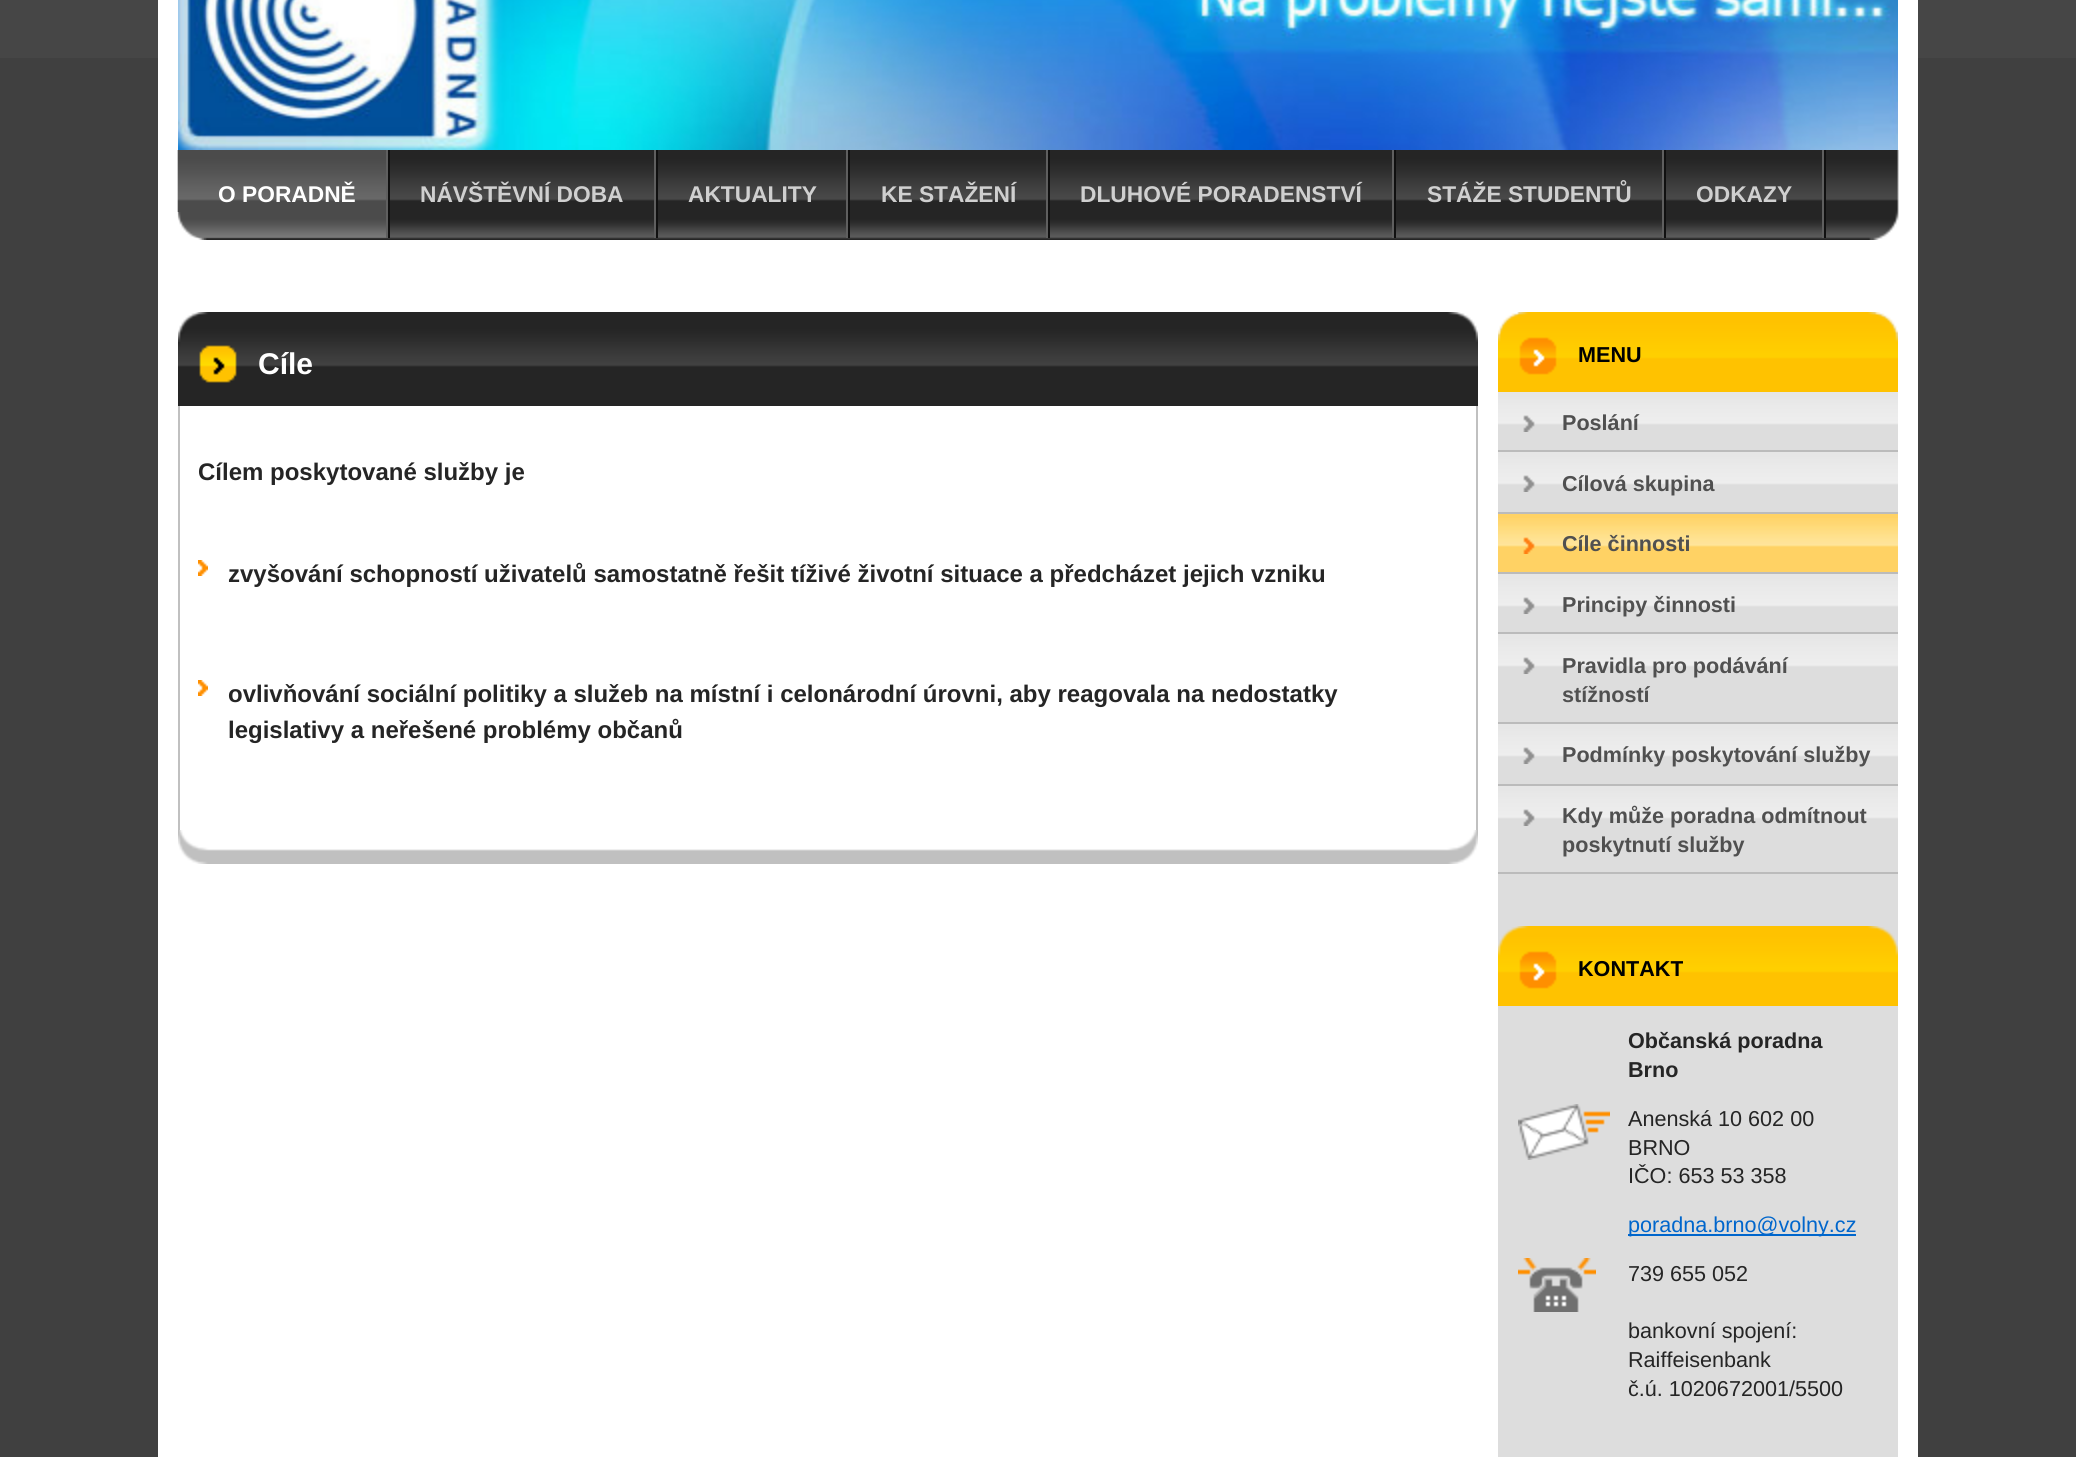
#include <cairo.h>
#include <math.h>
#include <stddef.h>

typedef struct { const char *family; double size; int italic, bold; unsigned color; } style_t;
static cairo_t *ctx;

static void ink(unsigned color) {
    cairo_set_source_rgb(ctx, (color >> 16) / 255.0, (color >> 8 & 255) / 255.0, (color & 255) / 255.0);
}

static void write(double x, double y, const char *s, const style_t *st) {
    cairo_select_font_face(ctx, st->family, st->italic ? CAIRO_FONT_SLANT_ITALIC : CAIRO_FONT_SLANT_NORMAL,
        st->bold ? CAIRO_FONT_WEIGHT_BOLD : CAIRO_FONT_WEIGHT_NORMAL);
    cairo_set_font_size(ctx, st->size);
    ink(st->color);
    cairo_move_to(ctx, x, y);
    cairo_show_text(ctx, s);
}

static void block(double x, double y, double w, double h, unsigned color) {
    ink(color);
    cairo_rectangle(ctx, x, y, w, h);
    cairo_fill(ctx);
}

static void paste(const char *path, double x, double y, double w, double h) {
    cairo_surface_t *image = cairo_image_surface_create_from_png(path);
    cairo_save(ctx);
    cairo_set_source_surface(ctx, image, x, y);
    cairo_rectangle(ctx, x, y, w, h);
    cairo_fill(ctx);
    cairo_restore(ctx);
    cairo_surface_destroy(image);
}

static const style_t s1 = {"Liberation Sans", 22.75, 0, 1, 0xffffff};
static const style_t s2 = {"Liberation Sans", 22.75, 0, 1, 0xd0d0d0};
static const style_t s3 = {"Liberation Sans", 30, 0, 1, 0xffffff};
static const style_t s4 = {"Liberation Sans", 24, 0, 1, 0x252525};
static const style_t s5 = {"Liberation Sans", 21.6, 0, 1, 0x000000};
static const style_t s6 = {"Liberation Sans", 21.6, 0, 1, 0x505050};
static const style_t s7 = {"Liberation Sans", 21.6, 0, 1, 0x252525};
static const style_t s8 = {"Liberation Sans", 21.6, 0, 0, 0x252525};
static const style_t s9 = {"Liberation Sans", 21.6, 0, 0, 0x0066cc};

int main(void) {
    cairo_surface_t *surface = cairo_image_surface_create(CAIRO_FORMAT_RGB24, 2076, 1457);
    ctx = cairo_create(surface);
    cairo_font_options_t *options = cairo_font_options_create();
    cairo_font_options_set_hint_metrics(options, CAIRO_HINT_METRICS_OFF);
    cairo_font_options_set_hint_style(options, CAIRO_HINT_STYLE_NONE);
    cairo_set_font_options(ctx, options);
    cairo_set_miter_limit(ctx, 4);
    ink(0x404040);
    cairo_paint(ctx);
    block(0, 0, 2076, 58, 0x464646);
    block(158, 0, 1760, 150, 0xffffff);
    paste("pic1.png", 178, 0, 1720, 150);
    paste("pic2.png", 158, 150, 1760, 90);
    block(388, 150, 2, 88, 0x101010);
    paste("pic3.png", 178, 150, 208, 88);
    block(386, 150, 2, 88, 0x5f5f5f);
    write(218, 202, "O PORADNĚ", &s1);
    block(656, 150, 2, 88, 0x101010);
    block(654, 150, 2, 88, 0x5f5f5f);
    write(420, 202, "NÁVŠTĚVNÍ DOBA", &s2);
    block(848, 150, 2, 88, 0x101010);
    block(846, 150, 2, 88, 0x5f5f5f);
    write(688, 202, "AKTUALITY", &s2);
    block(1048, 150, 2, 88, 0x101010);
    block(1046, 150, 2, 88, 0x5f5f5f);
    write(881, 202, "KE STAŽENÍ", &s2);
    block(1394, 150, 2, 88, 0x101010);
    block(1392, 150, 2, 88, 0x5f5f5f);
    write(1080, 202, "DLUHOVÉ PORADENSTVÍ", &s2);
    block(1664, 150, 2, 88, 0x101010);
    block(1662, 150, 2, 88, 0x5f5f5f);
    write(1427, 202, "STÁŽE STUDENTŮ", &s2);
    block(1824, 150, 2, 88, 0x101010);
    block(1822, 150, 2, 88, 0x5f5f5f);
    write(1696, 202, "ODKAZY", &s2);
    paste("pic4.png", 177, 212, 27, 28);
    block(158, 240, 1760, 1217, 0xffffff);
    paste("pic5.png", 178, 312, 1300, 30);
    block(1476, 406, 2, 424, 0xc0c0c0);
    block(178, 406, 2, 424, 0xc0c0c0);
    paste("pic6.png", 178, 830, 1300, 34);
    block(178, 383, 1300, 23, 0x252525);
    paste("pic7.png", 178, 342, 1300, 41);
    write(258, 374, "Cíle", &s3);
    write(198, 480, "Cílem poskytované služby je", &s4);
    paste("pic8.png", 198, 560, 10, 16);
    write(228, 582, "zvyšování schopností uživatelů samostatně řešit tíživé životní situace a předcházet jejich vzniku", &s4);
    paste("pic8.png", 198, 680, 10, 16);
    write(228, 702, "ovlivňování sociální politiky a služeb na místní i celonárodní úrovni, aby reagovala na nedostatky", &s4);
    write(228, 738, "legislativy a neřešené problémy občanů", &s4);
    block(1498, 432, 400, 1025, 0xdddddd);
    paste("pic10.png", 1498, 312, 400, 63);
    paste("pic9.png", 1498, 312, 400, 23);
    block(1498, 375, 400, 17, 0xffc200);
    write(1578, 362, "MENU", &s5);
    paste("pic11.png", 1498, 392, 400, 40);
    block(1498, 450, 400, 2, 0xbbbbbb);
    write(1562, 430, "Poslání", &s6);
    paste("pic11.png", 1498, 452, 400, 40);
    block(1498, 512, 400, 2, 0xbbbbbb);
    write(1562, 491, "Cílová skupina", &s6);
    block(1498, 514, 400, 58, 0xffd264);
    paste("pic12.png", 1498, 518, 400, 36);
    block(1498, 572, 400, 2, 0xbbbbbb);
    write(1562, 551, "Cíle činnosti", &s6);
    paste("pic11.png", 1498, 574, 400, 40);
    block(1498, 632, 400, 2, 0xbbbbbb);
    write(1562, 612, "Principy činnosti", &s6);
    paste("pic11.png", 1498, 634, 400, 40);
    block(1498, 722, 400, 2, 0xbbbbbb);
    write(1562, 673, "Pravidla pro podávání", &s6);
    write(1562, 702, "stížností", &s6);
    paste("pic11.png", 1498, 724, 400, 40);
    block(1498, 784, 400, 2, 0xbbbbbb);
    write(1562, 762, "Podmínky poskytování služby", &s6);
    paste("pic11.png", 1498, 786, 400, 40);
    block(1498, 872, 400, 2, 0xbbbbbb);
    write(1562, 823, "Kdy může poradna odmítnout", &s6);
    write(1562, 852, "poskytnutí služby", &s6);
    block(1498, 989, 400, 17, 0xffc200);
    paste("pic10.png", 1498, 926, 400, 63);
    write(1578, 976, "KONTAKT", &s5);
    write(1628, 1048, "Občanská poradna", &s7);
    write(1628, 1077, "Brno", &s7);
    paste("pic13.png", 1518, 1104, 92, 56);
    write(1628, 1126, "Anenská 10 602 00", &s8);
    write(1628, 1155, "BRNO", &s8);
    write(1628, 1183, "IČO: 653 53 358", &s8);
    block(1628, 1234, 228, 2, 0x0066cc);
    write(1628, 1232, "poradna.brno@volny.cz", &s9);
    paste("pic14.png", 1518, 1258, 78, 54);
    write(1628, 1281, "739 655 052", &s8);
    write(1628, 1338, "bankovní spojení:", &s8);
    write(1628, 1367, "Raiffeisenbank", &s8);
    write(1628, 1396, "č.ú. 1020672001/5500", &s8);
    cairo_surface_write_to_png(surface, "screenshot.png");
    cairo_font_options_destroy(options);
    cairo_destroy(ctx);
    cairo_surface_destroy(surface);
    return 0;
}
